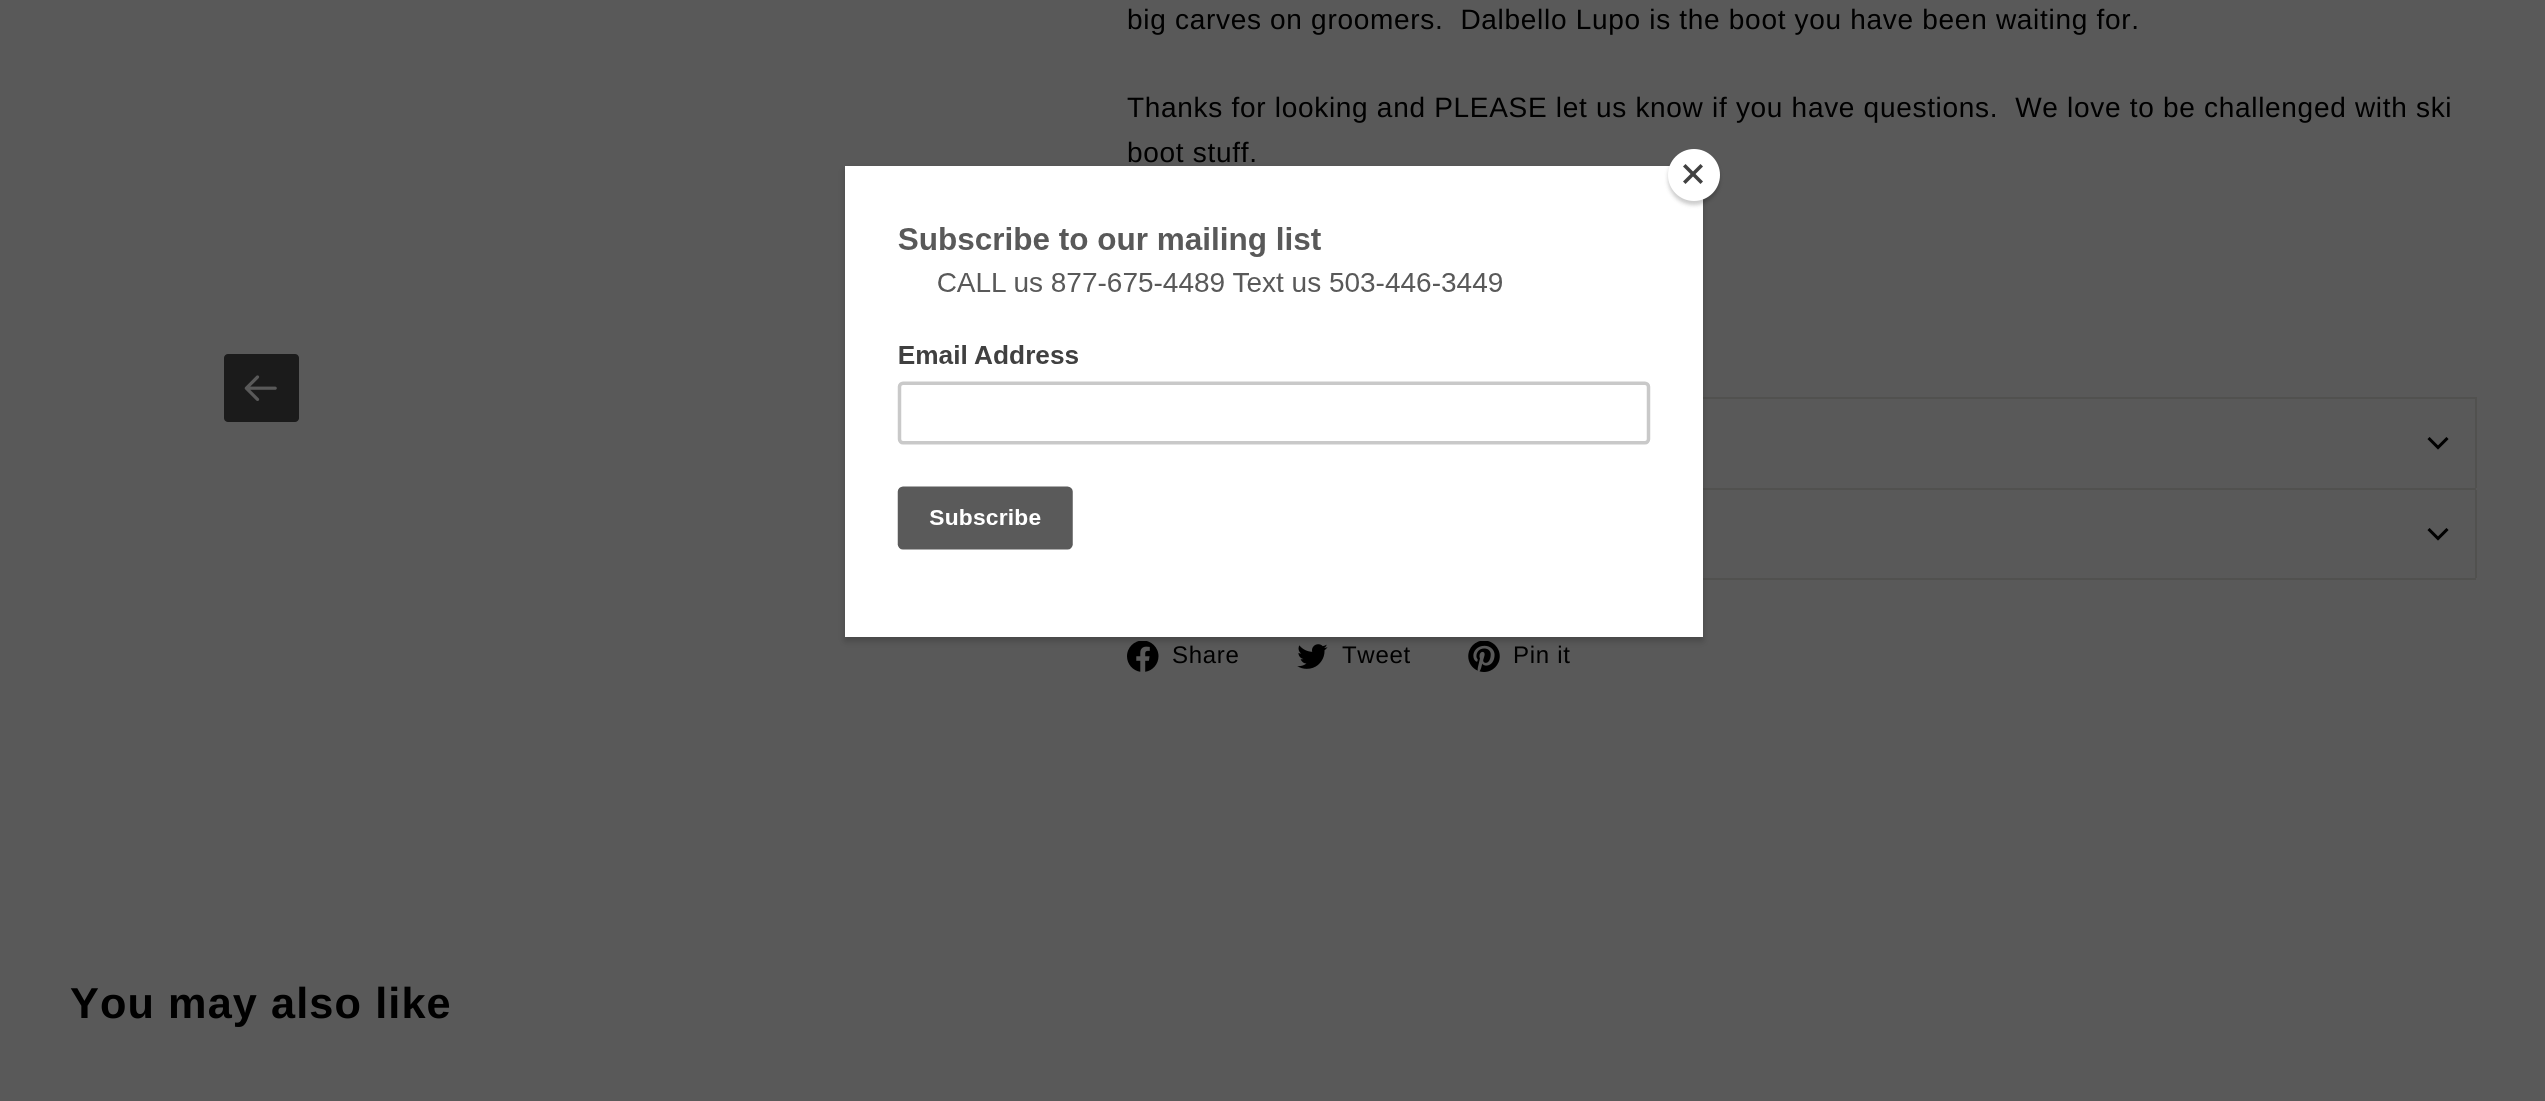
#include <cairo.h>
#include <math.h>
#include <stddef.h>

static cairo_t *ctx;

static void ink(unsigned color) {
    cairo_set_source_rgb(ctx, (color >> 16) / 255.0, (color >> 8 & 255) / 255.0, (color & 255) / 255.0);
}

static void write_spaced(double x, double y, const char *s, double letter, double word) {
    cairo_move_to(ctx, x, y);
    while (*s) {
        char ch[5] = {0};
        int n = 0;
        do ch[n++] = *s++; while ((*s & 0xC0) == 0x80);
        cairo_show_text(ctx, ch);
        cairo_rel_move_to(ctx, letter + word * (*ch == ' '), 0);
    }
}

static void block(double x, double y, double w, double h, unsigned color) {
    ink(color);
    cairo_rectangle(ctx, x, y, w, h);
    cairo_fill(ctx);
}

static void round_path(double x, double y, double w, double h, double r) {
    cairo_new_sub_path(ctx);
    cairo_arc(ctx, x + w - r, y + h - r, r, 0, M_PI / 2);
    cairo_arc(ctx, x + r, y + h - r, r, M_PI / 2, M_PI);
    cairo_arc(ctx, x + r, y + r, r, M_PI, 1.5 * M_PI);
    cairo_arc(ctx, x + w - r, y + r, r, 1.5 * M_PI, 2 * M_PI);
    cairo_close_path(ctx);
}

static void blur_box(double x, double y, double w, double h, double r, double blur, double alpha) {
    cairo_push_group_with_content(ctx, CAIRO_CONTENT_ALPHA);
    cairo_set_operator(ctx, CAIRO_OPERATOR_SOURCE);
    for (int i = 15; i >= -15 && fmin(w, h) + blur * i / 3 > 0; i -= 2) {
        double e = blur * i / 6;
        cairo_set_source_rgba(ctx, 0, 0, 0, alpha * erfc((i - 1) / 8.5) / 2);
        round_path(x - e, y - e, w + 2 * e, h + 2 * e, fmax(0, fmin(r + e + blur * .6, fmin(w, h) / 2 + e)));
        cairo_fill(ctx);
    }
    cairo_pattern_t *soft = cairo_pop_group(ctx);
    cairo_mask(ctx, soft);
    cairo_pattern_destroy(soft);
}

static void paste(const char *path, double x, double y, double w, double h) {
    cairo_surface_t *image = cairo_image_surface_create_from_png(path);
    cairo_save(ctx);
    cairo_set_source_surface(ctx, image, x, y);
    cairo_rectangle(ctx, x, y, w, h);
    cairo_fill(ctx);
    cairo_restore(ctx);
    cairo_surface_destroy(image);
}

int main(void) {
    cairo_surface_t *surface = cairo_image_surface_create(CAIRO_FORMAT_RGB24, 2545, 1101);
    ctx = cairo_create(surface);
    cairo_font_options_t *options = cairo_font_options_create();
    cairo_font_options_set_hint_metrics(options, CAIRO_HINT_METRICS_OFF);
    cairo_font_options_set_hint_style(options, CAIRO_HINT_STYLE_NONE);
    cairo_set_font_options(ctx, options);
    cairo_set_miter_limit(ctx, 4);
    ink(0x595959);
    cairo_paint(ctx);
    ink(0x1b1b1b);
    round_path(224, 354, 75, 68, 4);
    cairo_fill(ctx);
    paste("pic1.png", 244, 375, 33, 26);
    cairo_select_font_face(ctx, "Arimo", CAIRO_FONT_SLANT_NORMAL, CAIRO_FONT_WEIGHT_NORMAL);
    cairo_set_font_size(ctx, 28);
    ink(0x000000);
    write_spaced(1127, 29, "big carves on groomers.  Dalbello Lupo is the boot you have been waiting for.", 0.7, 0);
    write_spaced(1127, 117, "Thanks for looking and PLEASE let us know if you have questions.  We love to be challenged with ski", 0.7, 0);
    write_spaced(1127, 162, "boot stuff.", 0.7, 0);
    block(1703, 488, 773, 2, 0x51514f);
    block(1703, 397, 773, 2, 0x51514f);
    block(2475, 397, 2, 91, 0x51514f);
    cairo_new_path(ctx);
    cairo_move_to(ctx, 2428.5, 438);
    cairo_line_to(ctx, 2438, 447.5);
    cairo_line_to(ctx, 2447.5, 438);
    ink(0x000000);
    cairo_set_line_width(ctx, 3);
    cairo_stroke(ctx);
    block(1703, 578, 773, 2, 0x51514f);
    block(2475, 490, 2, 88, 0x51514f);
    cairo_new_path(ctx);
    cairo_move_to(ctx, 2428.5, 529);
    cairo_line_to(ctx, 2438, 538.5);
    cairo_line_to(ctx, 2447.5, 529);
    ink(0x000000);
    cairo_stroke(ctx);
    paste("pic2.png", 1127, 641, 32, 31);
    cairo_set_font_size(ctx, 24);
    write_spaced(1172, 663, "Share", 0.7, 0);
    paste("pic3.png", 1297, 644, 31, 25);
    write_spaced(1342, 663, "Tweet", 0.7, 0);
    paste("pic4.png", 1468, 641, 32, 31);
    write_spaced(1513, 663, "Pin it", 0.7, 0);
    cairo_select_font_face(ctx, "Arimo", CAIRO_FONT_SLANT_NORMAL, CAIRO_FONT_WEIGHT_BOLD);
    cairo_set_font_size(ctx, 43.25);
    write_spaced(70, 1018, "You may also like", 1.1, 0);
    ink(0x000000);
    blur_box(845, 170, 858, 471, 0, 3.5, 0.2);
    paste("pic5.png", 845, 166, 858, 471);
    blur_box(1668, 152, 52, 53, 26, 2, 0.2);
    ink(0xffffff);
    cairo_arc(ctx, 1694, 175, 26, 0, 2 * M_PI);
    cairo_fill(ctx);
    ink(0x414141);
    cairo_new_path(ctx);
    cairo_move_to(ctx, 1700.5, 164);
    cairo_line_to(ctx, 1703, 166.5);
    cairo_line_to(ctx, 1685.5, 184);
    cairo_line_to(ctx, 1683, 181.5);
    cairo_close_path(ctx);
    cairo_fill(ctx);
    cairo_new_path(ctx);
    cairo_move_to(ctx, 1683, 166.5);
    cairo_line_to(ctx, 1685.5, 164);
    cairo_line_to(ctx, 1703, 181.5);
    cairo_line_to(ctx, 1700.5, 184);
    cairo_close_path(ctx);
    cairo_fill(ctx);
    cairo_surface_write_to_png(surface, "screenshot.png");
    cairo_font_options_destroy(options);
    cairo_destroy(ctx);
    cairo_surface_destroy(surface);
    return 0;
}
